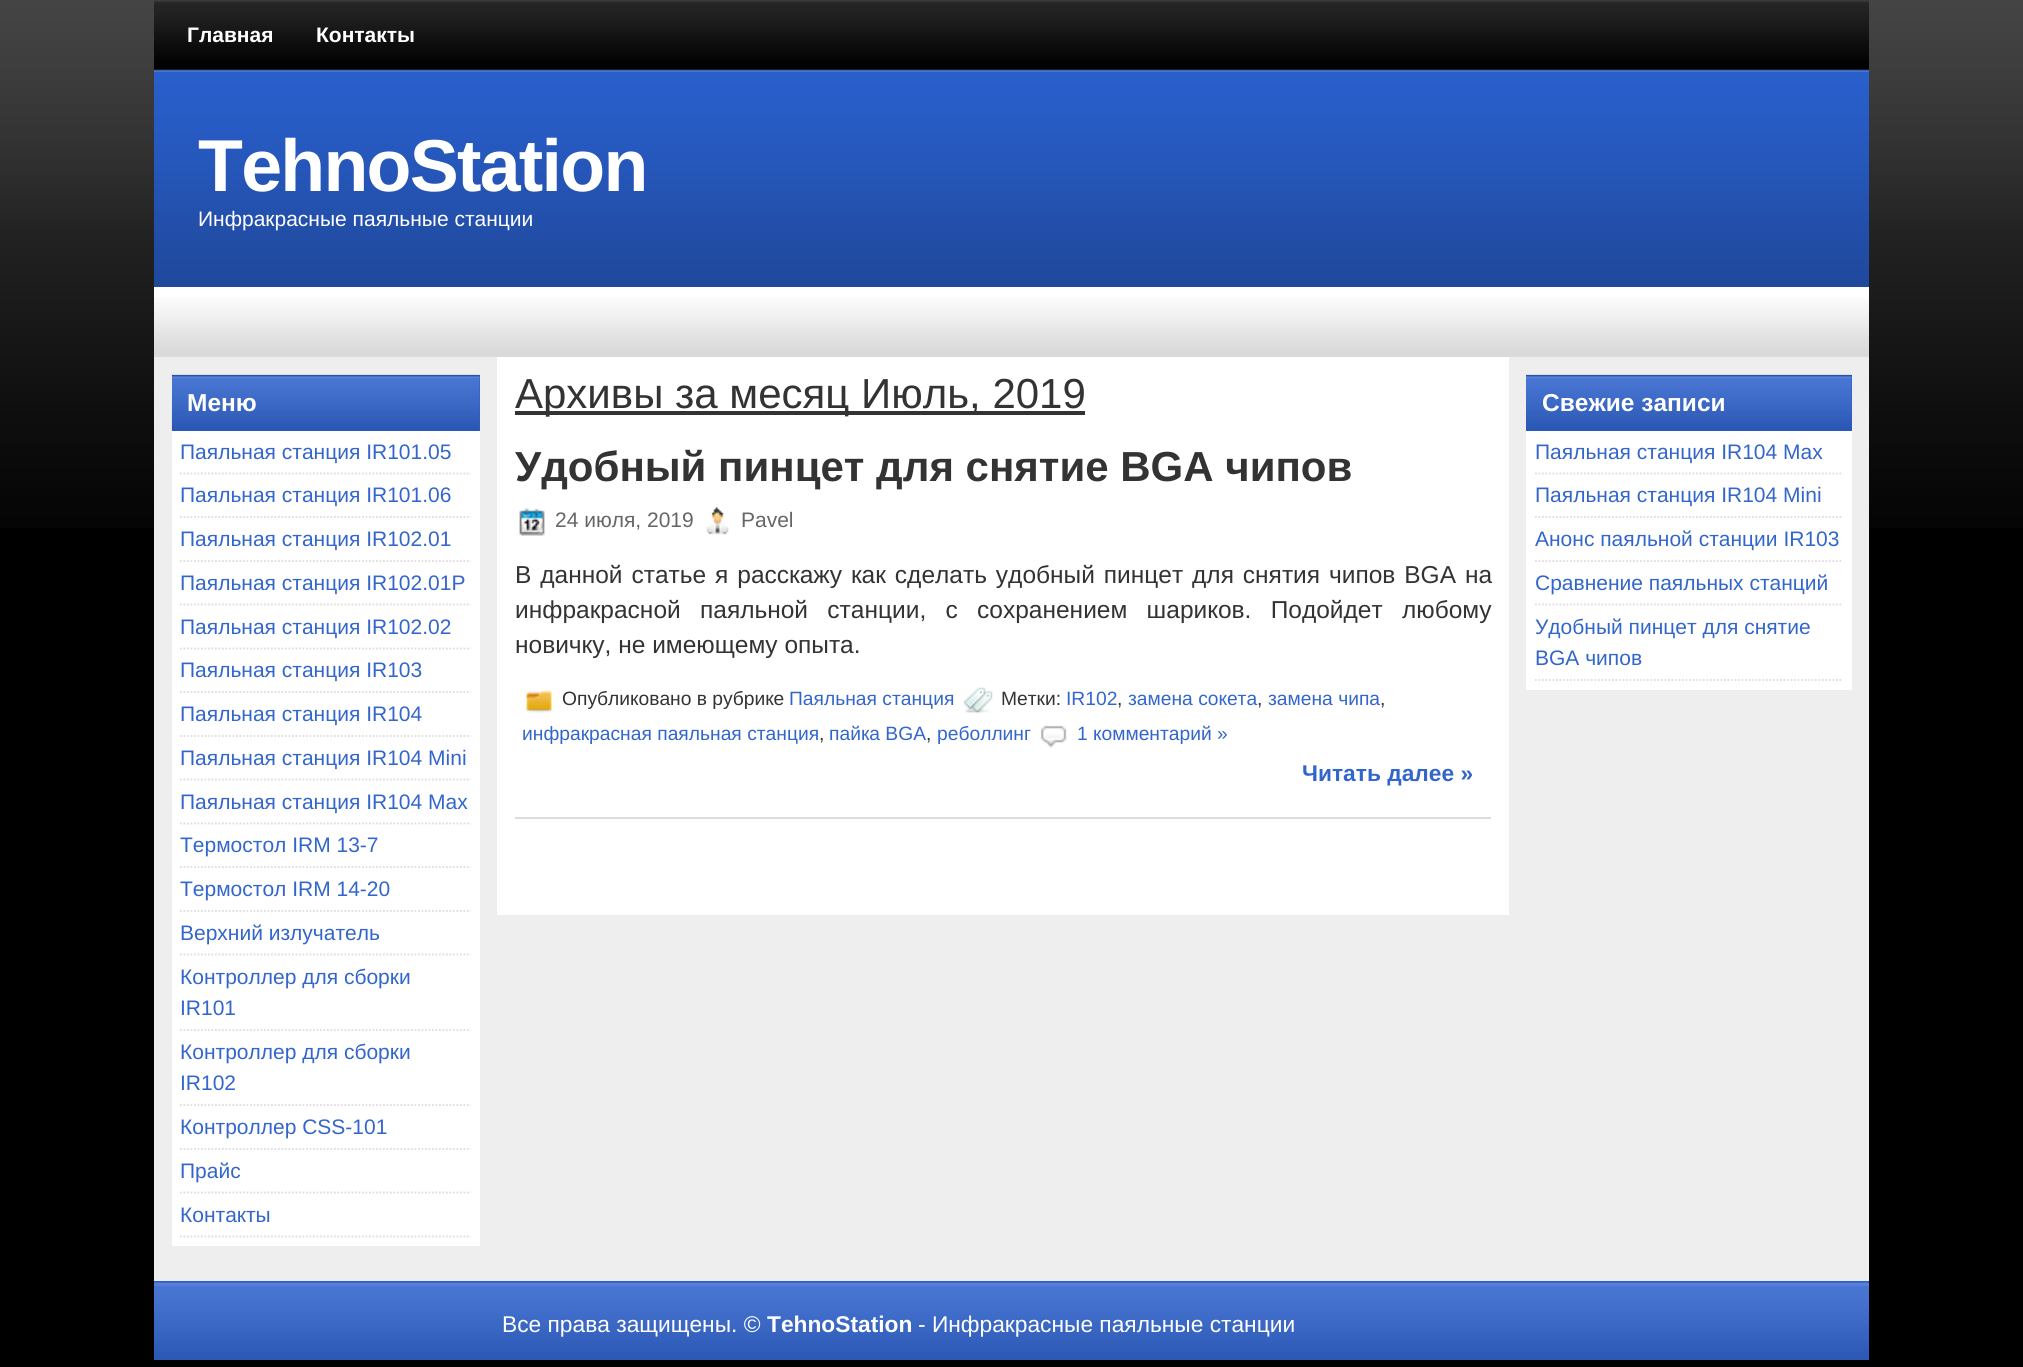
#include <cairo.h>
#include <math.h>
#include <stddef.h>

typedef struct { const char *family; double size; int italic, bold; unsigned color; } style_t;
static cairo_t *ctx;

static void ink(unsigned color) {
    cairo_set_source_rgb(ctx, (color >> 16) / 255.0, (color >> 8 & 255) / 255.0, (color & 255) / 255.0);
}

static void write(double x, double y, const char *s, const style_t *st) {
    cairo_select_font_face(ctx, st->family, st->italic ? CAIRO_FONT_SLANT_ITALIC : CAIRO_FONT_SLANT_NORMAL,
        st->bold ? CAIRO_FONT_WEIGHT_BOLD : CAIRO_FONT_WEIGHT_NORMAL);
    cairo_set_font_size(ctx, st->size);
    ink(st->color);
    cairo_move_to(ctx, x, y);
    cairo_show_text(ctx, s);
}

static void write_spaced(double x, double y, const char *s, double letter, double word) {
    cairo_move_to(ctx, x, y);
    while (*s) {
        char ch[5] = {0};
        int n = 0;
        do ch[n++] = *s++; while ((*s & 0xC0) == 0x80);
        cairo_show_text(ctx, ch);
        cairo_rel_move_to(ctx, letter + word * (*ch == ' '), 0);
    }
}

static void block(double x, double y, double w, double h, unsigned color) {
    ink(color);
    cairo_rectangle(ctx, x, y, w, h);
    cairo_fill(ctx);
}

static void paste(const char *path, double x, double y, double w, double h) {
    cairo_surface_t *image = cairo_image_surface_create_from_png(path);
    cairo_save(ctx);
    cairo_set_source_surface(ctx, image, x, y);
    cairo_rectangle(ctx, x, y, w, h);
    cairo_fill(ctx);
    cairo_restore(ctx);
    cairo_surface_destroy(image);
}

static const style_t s1 = {"Liberation Sans", 21, 0, 1, 0xffffff};
static const style_t s2 = {"Liberation Sans", 21, 0, 0, 0xffffff};
static const style_t s3 = {"Liberation Sans", 24.5, 0, 1, 0xffffff};
static const style_t s4 = {"Liberation Sans", 21, 0, 0, 0x3366cc};
static const style_t s5 = {"Liberation Sans", 42, 0, 0, 0x333333};
static const style_t s6 = {"Liberation Sans", 42, 0, 1, 0x333333};
static const style_t s7 = {"Liberation Sans", 21, 0, 0, 0x666666};
static const style_t s8 = {"Liberation Sans", 24.5, 0, 0, 0x333333};
static const style_t s9 = {"Liberation Sans", 19.25, 0, 0, 0x333333};
static const style_t s10 = {"Liberation Sans", 19.25, 0, 0, 0x3366cc};
static const style_t s11 = {"Liberation Sans", 22.75, 0, 1, 0x3366cc};
static const style_t s12 = {"Liberation Sans", 22.75, 0, 0, 0xffffff};
static const style_t s13 = {"Liberation Sans", 22.75, 0, 1, 0xffffff};

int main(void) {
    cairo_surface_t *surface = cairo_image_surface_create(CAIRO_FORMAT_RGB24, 2023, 1367);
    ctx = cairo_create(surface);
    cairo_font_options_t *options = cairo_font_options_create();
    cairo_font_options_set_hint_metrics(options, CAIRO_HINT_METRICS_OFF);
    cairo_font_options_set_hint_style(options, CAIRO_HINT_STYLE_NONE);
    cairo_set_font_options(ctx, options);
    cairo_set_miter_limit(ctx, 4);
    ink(0x000000);
    cairo_paint(ctx);
    paste("pic1.png", 0, 0, 2023, 528);
    paste("pic2.png", 154, 0, 1715, 287);
    write(187, 42, "Главная", &s1);
    write(316, 42, "Контакты", &s1);
    cairo_set_font_size(ctx, 73.5);
    write_spaced(198, 191, "TehnoStation", -1.75, 0);
    write(198, 226, "Инфракрасные паяльные станции", &s2);
    block(154, 287, 1715, 70, 0xffffff);
    paste("pic3.png", 154, 297, 1715, 60);
    block(154, 357, 1715, 924, 0xeeeeee);
    block(172, 431, 308, 815, 0xffffff);
    block(172, 375, 308, 56, 0x295ecb);
    paste("pic4.png", 171, 374, 309, 57);
    write(187, 411, "Меню", &s3);
    cairo_new_path(ctx);
    cairo_move_to(ctx, 180, 473.5);
    cairo_line_to(ctx, 471, 473.5);
    ink(0xdddddd);
    cairo_set_line_width(ctx, 1.8);
    cairo_set_dash(ctx, (double[]){1.75, 1.75}, 2, 0);
    cairo_stroke(ctx);
    write(180, 459, "Паяльная станция IR101.05", &s4);
    cairo_new_path(ctx);
    cairo_move_to(ctx, 180, 517);
    cairo_line_to(ctx, 471, 517);
    ink(0xdddddd);
    cairo_stroke(ctx);
    write(180, 502, "Паяльная станция IR101.06", &s4);
    cairo_new_path(ctx);
    cairo_move_to(ctx, 180, 561);
    cairo_line_to(ctx, 471, 561);
    ink(0xdddddd);
    cairo_stroke(ctx);
    write(180, 546, "Паяльная станция IR102.01", &s4);
    cairo_new_path(ctx);
    cairo_move_to(ctx, 180, 604.5);
    cairo_line_to(ctx, 471, 604.5);
    ink(0xdddddd);
    cairo_stroke(ctx);
    write(180, 590, "Паяльная станция IR102.01P", &s4);
    cairo_new_path(ctx);
    cairo_move_to(ctx, 180, 648.5);
    cairo_line_to(ctx, 471, 648.5);
    ink(0xdddddd);
    cairo_stroke(ctx);
    write(180, 634, "Паяльная станция IR102.02", &s4);
    cairo_new_path(ctx);
    cairo_move_to(ctx, 180, 692);
    cairo_line_to(ctx, 471, 692);
    ink(0xdddddd);
    cairo_stroke(ctx);
    write(180, 677, "Паяльная станция IR103", &s4);
    cairo_new_path(ctx);
    cairo_move_to(ctx, 180, 736);
    cairo_line_to(ctx, 471, 736);
    ink(0xdddddd);
    cairo_stroke(ctx);
    write(180, 721, "Паяльная станция IR104", &s4);
    cairo_new_path(ctx);
    cairo_move_to(ctx, 180, 779.5);
    cairo_line_to(ctx, 471, 779.5);
    ink(0xdddddd);
    cairo_stroke(ctx);
    write(180, 765, "Паяльная станция IR104 Mini", &s4);
    cairo_new_path(ctx);
    cairo_move_to(ctx, 180, 823.5);
    cairo_line_to(ctx, 471, 823.5);
    ink(0xdddddd);
    cairo_stroke(ctx);
    write(180, 809, "Паяльная станция IR104 Max", &s4);
    cairo_new_path(ctx);
    cairo_move_to(ctx, 180, 867);
    cairo_line_to(ctx, 471, 867);
    ink(0xdddddd);
    cairo_stroke(ctx);
    write(180, 852, "Термостол IRM 13-7", &s4);
    cairo_new_path(ctx);
    cairo_move_to(ctx, 180, 911);
    cairo_line_to(ctx, 471, 911);
    ink(0xdddddd);
    cairo_stroke(ctx);
    write(180, 896, "Термостол IRM 14-20", &s4);
    cairo_new_path(ctx);
    cairo_move_to(ctx, 180, 954.5);
    cairo_line_to(ctx, 471, 954.5);
    ink(0xdddddd);
    cairo_stroke(ctx);
    write(180, 940, "Верхний излучатель", &s4);
    cairo_new_path(ctx);
    cairo_move_to(ctx, 180, 1030);
    cairo_line_to(ctx, 471, 1030);
    ink(0xdddddd);
    cairo_stroke(ctx);
    write(180, 984, "Контроллер для сборки", &s4);
    write(180, 1015, "IR101", &s4);
    cairo_new_path(ctx);
    cairo_move_to(ctx, 180, 1105);
    cairo_line_to(ctx, 471, 1105);
    ink(0xdddddd);
    cairo_stroke(ctx);
    write(180, 1059, "Контроллер для сборки", &s4);
    write(180, 1090, "IR102", &s4);
    cairo_new_path(ctx);
    cairo_move_to(ctx, 180, 1149);
    cairo_line_to(ctx, 471, 1149);
    ink(0xdddddd);
    cairo_stroke(ctx);
    write(180, 1134, "Контроллер CSS-101", &s4);
    cairo_new_path(ctx);
    cairo_move_to(ctx, 180, 1192.5);
    cairo_line_to(ctx, 471, 1192.5);
    ink(0xdddddd);
    cairo_stroke(ctx);
    write(180, 1178, "Прайс", &s4);
    cairo_new_path(ctx);
    cairo_move_to(ctx, 180, 1236.5);
    cairo_line_to(ctx, 471, 1236.5);
    ink(0xdddddd);
    cairo_stroke(ctx);
    write(180, 1222, "Контакты", &s4);
    block(497, 357, 1012, 558, 0xffffff);
    block(515, 411, 570, 4, 0x333333);
    write(515, 408, "Архивы за месяц Июль, 2019", &s5);
    block(515, 817, 976, 2, 0xdddddd);
    write(515, 481, "Удобный пинцет для снятие BGA чипов", &s6);
    paste("pic5.png", 519, 507, 26, 29);
    write(555, 527, "24 июля, 2019", &s7);
    paste("pic6.png", 706, 507, 23, 28);
    write(741, 527, "Pavel", &s7);
    cairo_set_font_size(ctx, 24.5);
    ink(0x333333);
    write_spaced(515, 583, "В данной статье я расскажу как сделать удобный пинцет для снятия чипов BGA на", 0, 2.1);
    write_spaced(515, 618, "инфракрасной паяльной станции, с сохранением шариков. Подойдет любому", 0, 12.5);
    write(515, 653, "новичку, не имеющему опыта.", &s8);
    paste("pic7.png", 525, 689, 28, 24);
    write(562, 705, "Опубликовано в рубрике", &s9);
    write(789, 705, "Паяльная станция", &s10);
    paste("pic8.png", 964, 687, 29, 26);
    write(1001, 705, "Метки:", &s9);
    write(1066, 705, "IR102", &s10);
    write(1117, 705, ",", &s9);
    write(1128, 705, "замена сокета", &s10);
    write(1257, 705, ",", &s9);
    write(1268, 705, "замена чипа", &s10);
    write(1380, 705, ",", &s9);
    write(522, 740, "инфракрасная паяльная станция", &s10);
    write(819, 740, ",", &s9);
    write(829, 740, "пайка BGA", &s10);
    write(926, 740, ",", &s9);
    write(937, 740, "реболлинг", &s10);
    paste("pic9.png", 1040, 725, 27, 23);
    write(1077, 740, "1 комментарий »", &s10);
    write(1302, 781, "Читать далее »", &s11);
    block(1526, 431, 326, 259, 0xffffff);
    block(1526, 375, 326, 56, 0x295ecb);
    paste("pic10.png", 1526, 374, 326, 57);
    write(1542, 411, "Свежие записи", &s3);
    cairo_new_path(ctx);
    cairo_move_to(ctx, 1535, 473.5);
    cairo_line_to(ctx, 1843, 473.5);
    ink(0xdddddd);
    cairo_stroke(ctx);
    write(1535, 459, "Паяльная станция IR104 Max", &s4);
    cairo_new_path(ctx);
    cairo_move_to(ctx, 1535, 517);
    cairo_line_to(ctx, 1843, 517);
    ink(0xdddddd);
    cairo_stroke(ctx);
    write(1535, 502, "Паяльная станция IR104 Mini", &s4);
    cairo_new_path(ctx);
    cairo_move_to(ctx, 1535, 561);
    cairo_line_to(ctx, 1843, 561);
    ink(0xdddddd);
    cairo_stroke(ctx);
    write(1535, 546, "Анонс паяльной станции IR103", &s4);
    cairo_new_path(ctx);
    cairo_move_to(ctx, 1535, 604.5);
    cairo_line_to(ctx, 1843, 604.5);
    ink(0xdddddd);
    cairo_stroke(ctx);
    write(1535, 590, "Сравнение паяльных станций", &s4);
    cairo_new_path(ctx);
    cairo_move_to(ctx, 1535, 680);
    cairo_line_to(ctx, 1843, 680);
    ink(0xdddddd);
    cairo_stroke(ctx);
    write(1535, 634, "Удобный пинцет для снятие", &s4);
    write(1535, 665, "BGA чипов", &s4);
    block(154, 1281, 1715, 79, 0x295ecb);
    paste("pic11.png", 154, 1282, 1715, 78);
    write(502, 1332, "Все права защищены. ©", &s12);
    write(767, 1332, "TehnoStation", &s13);
    write(918, 1332, "- Инфракрасные паяльные станции", &s12);
    cairo_surface_write_to_png(surface, "screenshot.png");
    cairo_font_options_destroy(options);
    cairo_destroy(ctx);
    cairo_surface_destroy(surface);
    return 0;
}
